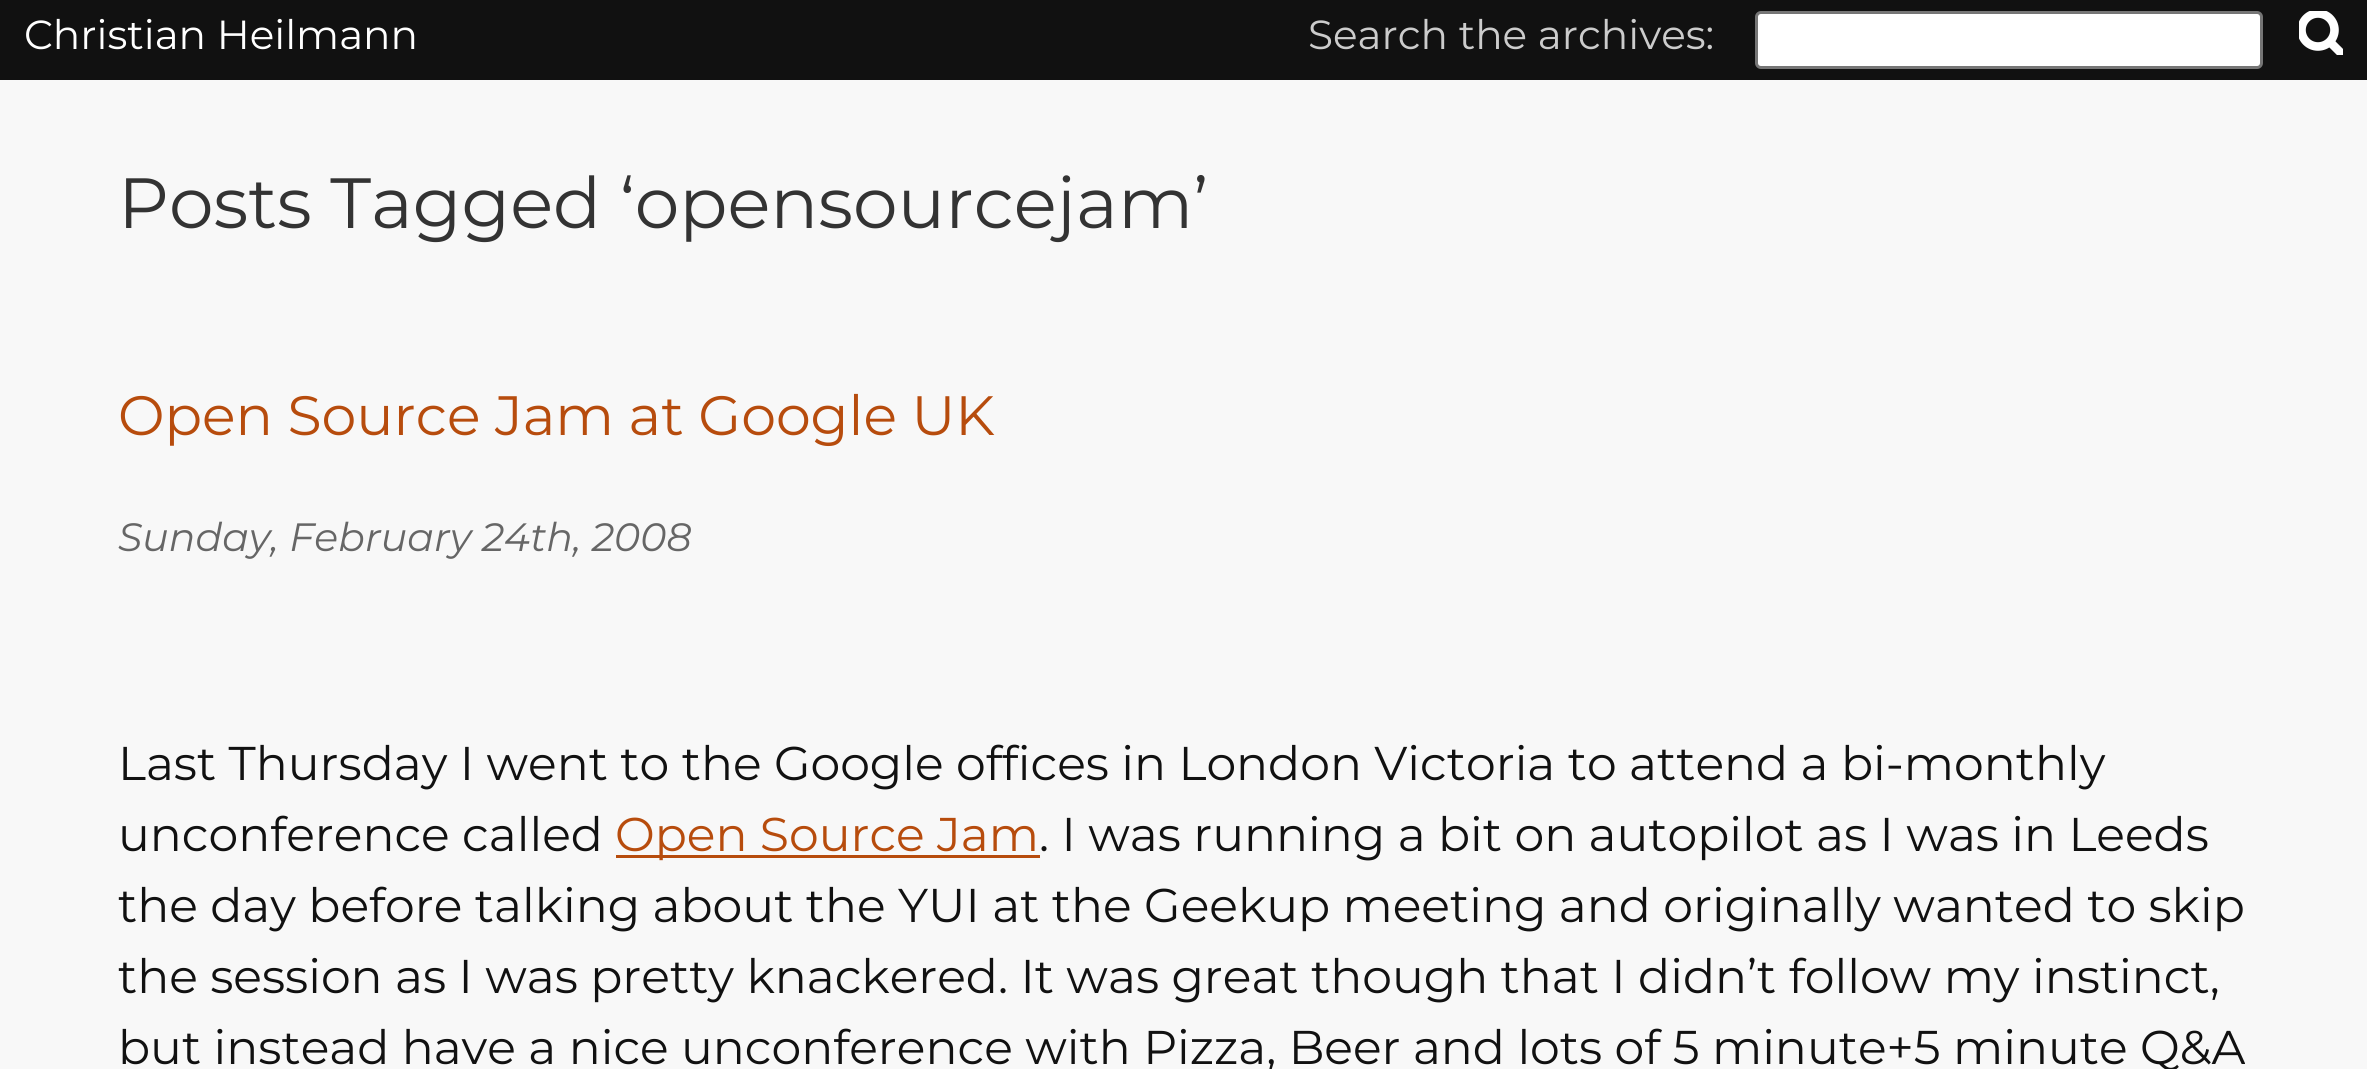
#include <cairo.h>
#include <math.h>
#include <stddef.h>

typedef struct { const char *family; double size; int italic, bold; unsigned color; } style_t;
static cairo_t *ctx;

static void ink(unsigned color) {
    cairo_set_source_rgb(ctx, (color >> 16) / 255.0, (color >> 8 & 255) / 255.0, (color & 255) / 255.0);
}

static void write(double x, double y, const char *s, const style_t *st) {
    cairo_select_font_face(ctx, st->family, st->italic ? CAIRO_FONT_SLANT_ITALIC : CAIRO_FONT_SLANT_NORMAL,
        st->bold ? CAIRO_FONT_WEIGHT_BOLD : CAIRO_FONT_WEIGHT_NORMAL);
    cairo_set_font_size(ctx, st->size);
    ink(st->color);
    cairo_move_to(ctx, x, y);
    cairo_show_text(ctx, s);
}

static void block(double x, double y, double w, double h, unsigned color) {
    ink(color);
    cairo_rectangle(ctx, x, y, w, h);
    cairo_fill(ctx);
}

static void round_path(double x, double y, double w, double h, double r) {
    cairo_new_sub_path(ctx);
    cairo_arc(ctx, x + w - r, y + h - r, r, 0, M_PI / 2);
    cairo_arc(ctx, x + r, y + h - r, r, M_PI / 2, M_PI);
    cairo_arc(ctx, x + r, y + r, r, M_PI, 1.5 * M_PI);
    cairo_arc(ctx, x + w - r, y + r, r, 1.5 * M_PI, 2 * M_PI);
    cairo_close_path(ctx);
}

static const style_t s1 = {"Montserrat", 40.6, 0, 0, 0xffffff};
static const style_t s2 = {"Montserrat", 40.6, 0, 0, 0xcccccc};
static const style_t s3 = {"Montserrat", 71, 0, 0, 0x333333};
static const style_t s4 = {"Montserrat", 55.4, 0, 0, 0xb74c0d};
static const style_t s5 = {"Montserrat", 39.5, 1, 0, 0x666666};
static const style_t s6 = {"Montserrat", 47.35, 0, 0, 0x111111};
static const style_t s7 = {"Montserrat", 47.35, 0, 0, 0xb74c0d};

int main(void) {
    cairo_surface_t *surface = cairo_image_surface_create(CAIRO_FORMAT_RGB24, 2367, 1069);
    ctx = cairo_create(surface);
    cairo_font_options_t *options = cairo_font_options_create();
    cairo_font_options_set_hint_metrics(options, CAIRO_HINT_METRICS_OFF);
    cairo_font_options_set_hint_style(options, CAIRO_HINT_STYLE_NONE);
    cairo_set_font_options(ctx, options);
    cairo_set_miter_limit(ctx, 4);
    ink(0xf8f8f8);
    cairo_paint(ctx);
    block(0, 0, 2367, 80, 0x111111);
    write(24, 49, "Christian Heilmann", &s1);
    write(1308, 49, "Search the archives:", &s2);
    ink(0xffffff);
    round_path(1756.5, 12.5, 505, 55, 4.5);
    cairo_fill_preserve(ctx);
    ink(0x767676);
    cairo_set_line_width(ctx, 3);
    cairo_stroke(ctx);
    cairo_save(ctx);
    cairo_rectangle(ctx, 2299, 11, 44, 44);
    cairo_clip(ctx);
    cairo_arc(ctx, 2318, 30, 16.5, 0, 2 * M_PI);
    ink(0xffffff);
    cairo_set_line_width(ctx, 8.6);
    cairo_stroke(ctx);
    cairo_new_path(ctx);
    cairo_move_to(ctx, 2330.5, 42.5);
    cairo_line_to(ctx, 2340, 52);
    cairo_set_line_cap(ctx, CAIRO_LINE_CAP_ROUND);
    cairo_set_line_join(ctx, CAIRO_LINE_JOIN_ROUND);
    cairo_stroke(ctx);
    cairo_restore(ctx);
    write(118, 228, "Posts Tagged ‘opensourcejam’", &s3);
    write(118, 435, "Open Source Jam at Google UK", &s4);
    write(118, 551, "Sunday, February 24th, 2008", &s5);
    write(118, 780, "Last Thursday I went to the Google offices in London Victoria to attend a bi-monthly", &s6);
    write(118, 851, "unconference called", &s6);
    block(616, 855, 424, 3, 0xb74c0d);
    write(615, 851, "Open Source Jam", &s7);
    write(1039, 851, ". I was running a bit on autopilot as I was in Leeds", &s6);
    write(118, 922, "the day before talking about the", &s6);
    write(898, 922, "YUI at the Geekup meeting and originally wanted to skip", &s6);
    write(118, 993, "the session as I was pretty knackered. It was great though that I didn’t follow my instinct,", &s6);
    write(118, 1064, "but instead have a nice unconference with Pizza, Beer and lots of 5 minute+5 minute Q&A", &s6);
    cairo_surface_write_to_png(surface, "screenshot.png");
    cairo_font_options_destroy(options);
    cairo_destroy(ctx);
    cairo_surface_destroy(surface);
    return 0;
}
